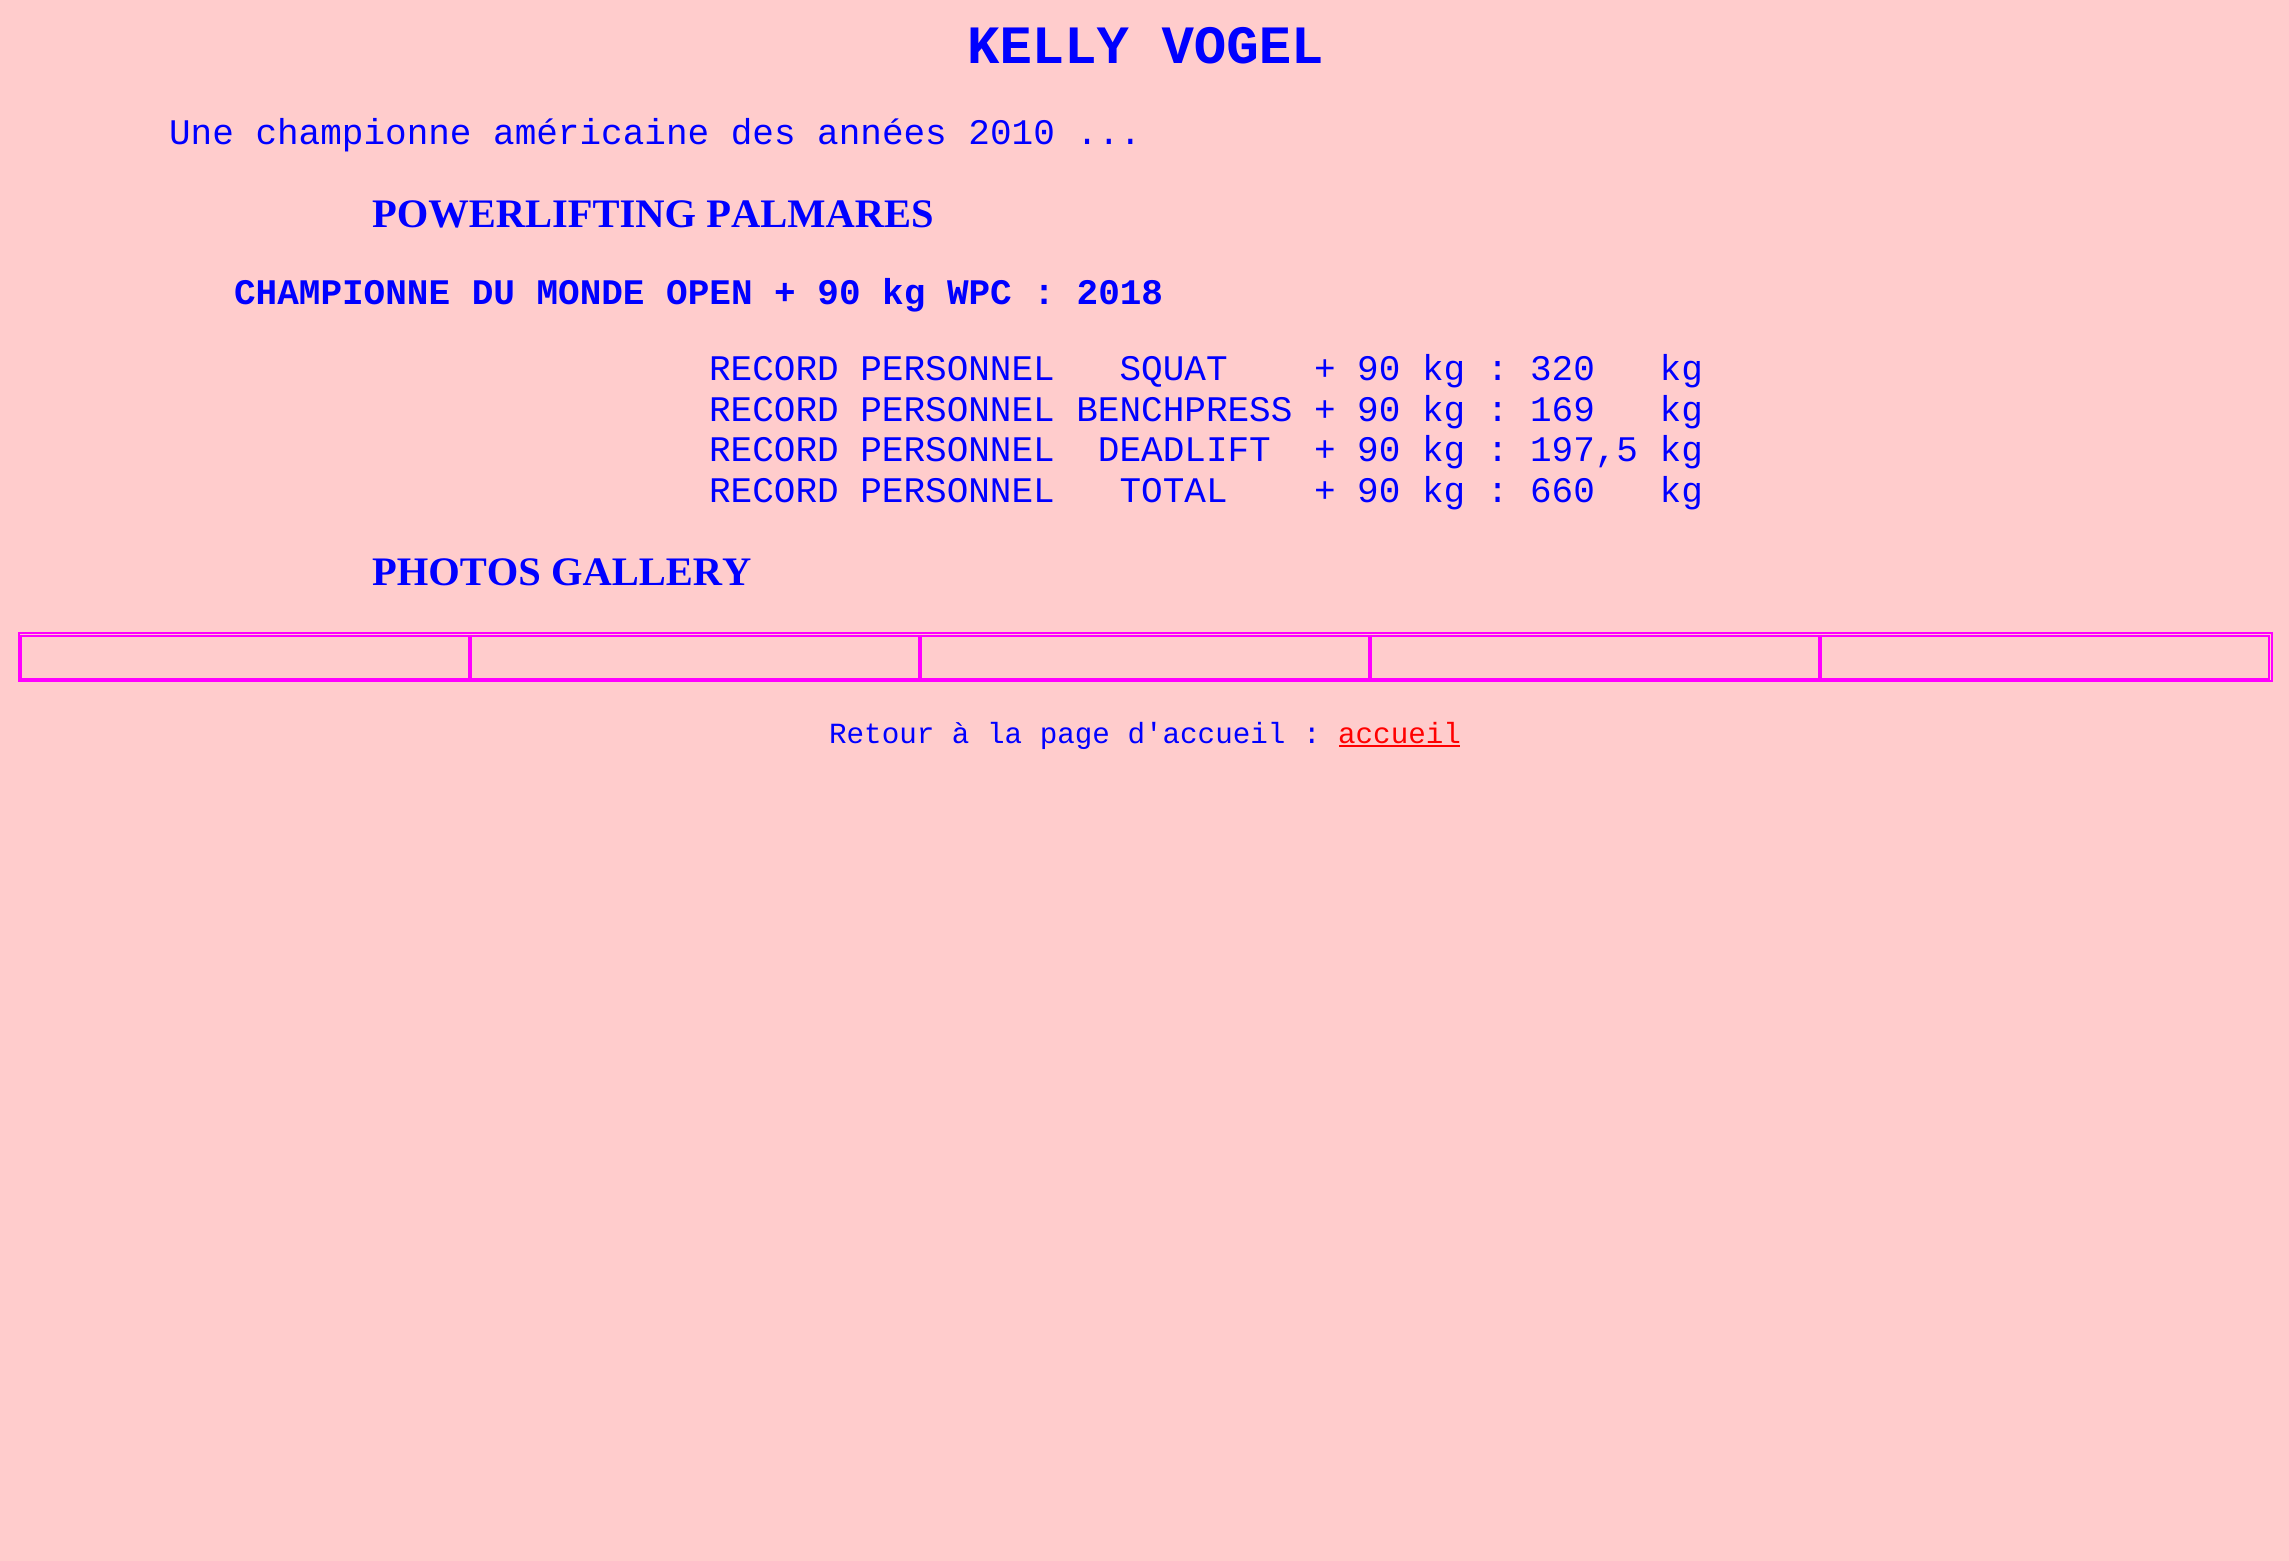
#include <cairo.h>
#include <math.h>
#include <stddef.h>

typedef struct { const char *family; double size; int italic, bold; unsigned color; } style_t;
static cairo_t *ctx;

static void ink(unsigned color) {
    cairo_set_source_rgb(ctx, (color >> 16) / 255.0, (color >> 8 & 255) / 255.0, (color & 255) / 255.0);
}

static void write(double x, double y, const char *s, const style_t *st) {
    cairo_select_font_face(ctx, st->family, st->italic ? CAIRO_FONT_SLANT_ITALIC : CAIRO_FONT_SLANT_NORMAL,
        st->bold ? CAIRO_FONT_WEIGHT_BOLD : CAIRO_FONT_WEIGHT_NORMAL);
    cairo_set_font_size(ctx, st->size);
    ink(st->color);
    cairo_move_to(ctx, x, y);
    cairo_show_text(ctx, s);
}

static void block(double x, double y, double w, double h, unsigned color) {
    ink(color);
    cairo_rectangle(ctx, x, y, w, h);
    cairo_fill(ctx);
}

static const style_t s1 = {"Liberation Mono", 54, 0, 1, 0x0000ff};
static const style_t s2 = {"Liberation Mono", 36, 0, 0, 0x0000ff};
static const style_t s3 = {"Liberation Serif", 40.5, 0, 1, 0x0000ff};
static const style_t s4 = {"Liberation Mono", 36, 0, 1, 0x0000ff};
static const style_t s5 = {"Liberation Mono", 29.25, 0, 0, 0x0000ff};
static const style_t s6 = {"Liberation Mono", 29.25, 0, 0, 0xff0000};

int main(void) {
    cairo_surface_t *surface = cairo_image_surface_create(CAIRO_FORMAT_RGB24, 2289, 1561);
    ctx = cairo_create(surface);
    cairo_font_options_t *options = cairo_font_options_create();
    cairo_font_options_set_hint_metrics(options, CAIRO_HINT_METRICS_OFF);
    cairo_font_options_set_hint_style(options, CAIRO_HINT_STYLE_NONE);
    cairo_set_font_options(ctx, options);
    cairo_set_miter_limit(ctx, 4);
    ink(0xffcccc);
    cairo_paint(ctx);
    write(967, 63, "KELLY VOGEL", &s1);
    write(169, 144, "Une championne américaine des années 2010 ...", &s2);
    write(372, 227, "POWERLIFTING PALMARES", &s3);
    write(234, 304, "CHAMPIONNE DU MONDE OPEN + 90 kg WPC : 2018", &s4);
    write(709, 380, "RECORD PERSONNEL   SQUAT    + 90 kg : 320   kg", &s2);
    write(709, 421, "RECORD PERSONNEL BENCHPRESS + 90 kg : 169   kg", &s2);
    write(709, 461, "RECORD PERSONNEL  DEADLIFT  + 90 kg : 197,5 kg", &s2);
    write(709, 502, "RECORD PERSONNEL   TOTAL    + 90 kg : 660   kg", &s2);
    write(372, 585, "PHOTOS GALLERY", &s3);
    cairo_rectangle(ctx, 19, 633, 2253, 48);
    ink(0xff00ff);
    cairo_stroke(ctx);
    cairo_rectangle(ctx, 21, 636, 448, 43);
    cairo_stroke(ctx);
    cairo_rectangle(ctx, 471, 636, 448, 43);
    cairo_stroke(ctx);
    cairo_rectangle(ctx, 921, 636, 448, 43);
    cairo_stroke(ctx);
    cairo_rectangle(ctx, 1371, 636, 448, 43);
    cairo_stroke(ctx);
    cairo_rectangle(ctx, 1821, 636, 448, 43);
    cairo_stroke(ctx);
    write(829, 743, "Retour à la page d'accueil :", &s5);
    write(1338, 743, "accueil", &s6);
    block(1339, 745, 121, 2, 0xff0000);
    cairo_surface_write_to_png(surface, "screenshot.png");
    cairo_font_options_destroy(options);
    cairo_destroy(ctx);
    cairo_surface_destroy(surface);
    return 0;
}
